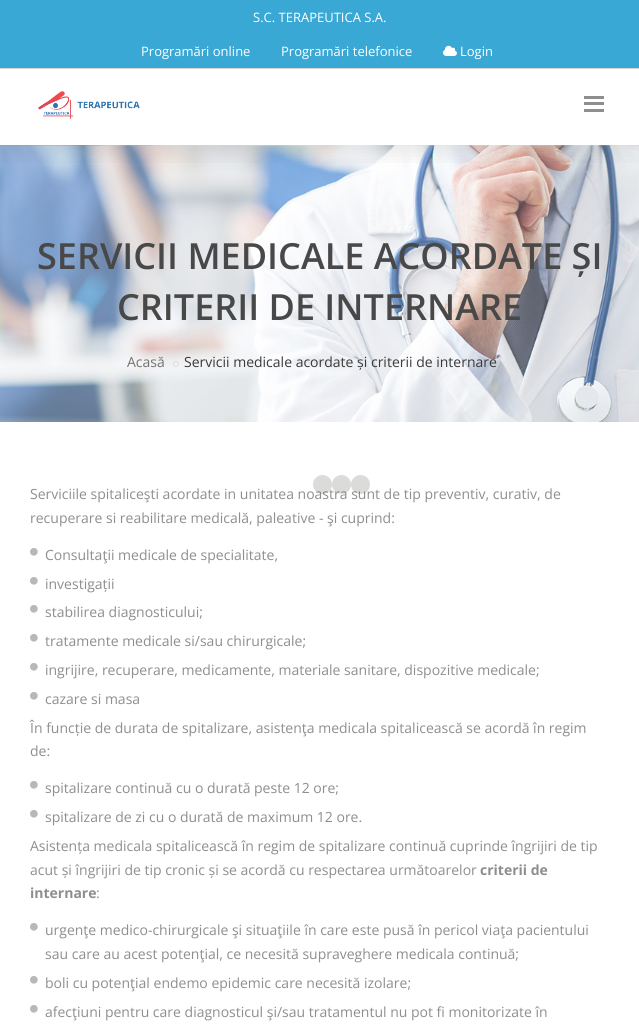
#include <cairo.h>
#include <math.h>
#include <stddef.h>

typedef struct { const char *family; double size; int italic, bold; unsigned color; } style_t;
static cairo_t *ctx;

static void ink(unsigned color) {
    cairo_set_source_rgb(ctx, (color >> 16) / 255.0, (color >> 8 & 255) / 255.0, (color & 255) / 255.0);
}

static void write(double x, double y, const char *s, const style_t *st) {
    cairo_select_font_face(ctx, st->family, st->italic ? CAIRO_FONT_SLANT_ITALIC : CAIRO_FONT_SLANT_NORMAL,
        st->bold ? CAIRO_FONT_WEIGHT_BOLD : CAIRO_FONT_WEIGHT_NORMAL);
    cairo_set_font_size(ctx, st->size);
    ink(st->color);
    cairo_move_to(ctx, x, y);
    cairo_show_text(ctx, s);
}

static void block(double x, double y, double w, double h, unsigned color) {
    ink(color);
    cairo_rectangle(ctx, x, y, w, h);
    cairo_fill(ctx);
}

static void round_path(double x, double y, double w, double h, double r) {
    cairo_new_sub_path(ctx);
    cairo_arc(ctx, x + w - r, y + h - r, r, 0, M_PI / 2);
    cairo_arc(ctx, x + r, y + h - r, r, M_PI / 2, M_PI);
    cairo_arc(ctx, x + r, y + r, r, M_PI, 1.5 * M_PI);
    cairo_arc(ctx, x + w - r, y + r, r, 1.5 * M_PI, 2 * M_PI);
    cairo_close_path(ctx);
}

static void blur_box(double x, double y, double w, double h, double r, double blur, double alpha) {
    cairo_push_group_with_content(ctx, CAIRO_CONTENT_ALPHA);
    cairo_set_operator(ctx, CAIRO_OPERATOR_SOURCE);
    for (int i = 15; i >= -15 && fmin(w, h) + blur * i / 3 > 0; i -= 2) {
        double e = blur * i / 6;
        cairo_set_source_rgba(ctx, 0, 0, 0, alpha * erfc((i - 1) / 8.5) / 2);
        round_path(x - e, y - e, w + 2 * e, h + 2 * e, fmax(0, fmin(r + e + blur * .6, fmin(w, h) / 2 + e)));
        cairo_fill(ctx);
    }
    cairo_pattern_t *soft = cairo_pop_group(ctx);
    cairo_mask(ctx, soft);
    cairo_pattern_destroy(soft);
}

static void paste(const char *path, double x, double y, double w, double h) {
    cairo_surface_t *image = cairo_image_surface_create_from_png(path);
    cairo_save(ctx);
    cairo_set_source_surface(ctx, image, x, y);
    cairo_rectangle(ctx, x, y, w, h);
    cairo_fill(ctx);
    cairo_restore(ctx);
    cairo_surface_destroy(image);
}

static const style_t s1 = {"Open Sans", 13, 0, 0, 0xffffff};
static const style_t s2 = {"Open Sans SemiBold", 36, 0, 0, 0x484848};
static const style_t s3 = {"Open Sans", 14, 0, 0, 0x727272};
static const style_t s4 = {"Open Sans", 14, 0, 0, 0x393939};
static const style_t s5 = {"Open Sans", 14, 0, 0, 0x8e8e8e};
static const style_t s6 = {"Open Sans", 14, 0, 1, 0x8e8e8e};

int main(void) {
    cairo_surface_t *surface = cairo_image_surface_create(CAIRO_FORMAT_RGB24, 639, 1032);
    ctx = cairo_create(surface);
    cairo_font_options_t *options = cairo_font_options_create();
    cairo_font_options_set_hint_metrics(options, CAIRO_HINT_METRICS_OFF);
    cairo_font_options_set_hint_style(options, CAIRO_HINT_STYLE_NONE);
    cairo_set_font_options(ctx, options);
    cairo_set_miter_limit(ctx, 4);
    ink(0xffffff);
    cairo_paint(ctx);
    block(0, 0, 639, 68, 0x39a8d5);
    block(0, 68, 639, 1, 0xd5d5d5);
    write(253, 22, "S.C. TERAPEUTICA S.A.", &s1);
    write(141, 56, "Programări online", &s1);
    write(281, 56, "Programări telefonice", &s1);
    paste("pic1.png", 443, 45, 14, 11);
    write(460, 56, "Login", &s1);
    paste("pic3.png", 0, 145, 639, 277);
    cairo_save(ctx);
    cairo_rectangle(ctx, 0, 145, 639, 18);
    cairo_clip(ctx);
    ink(0x2b2b2b);
    blur_box(0, 79, 639, 76, 0, 10, 0.1);
    cairo_restore(ctx);
    paste("pic2.png", 38, 91, 102, 28);
    block(584, 96, 20, 3, 0x8e8e8e);
    block(584, 102, 20, 3, 0x8e8e8e);
    block(584, 109, 20, 3, 0x8e8e8e);
    write(37, 269, "SERVICII MEDICALE ACORDATE ȘI", &s2);
    write(117, 320, "CRITERII DE INTERNARE", &s2);
    write(127, 367, "Acasă", &s3);
    paste("pic4.png", 173, 361, 6, 6);
    write(184, 367, "Servicii medicale acordate și criterii de internare", &s4);
    write(30, 499, "Serviciile spitaliceşti acordate in unitatea noastra sunt de tip preventiv, curativ, de", &s5);
    write(30, 523, "recuperare si reabilitare medicală, paleative - şi cuprind:", &s5);
    paste("pic5.png", 30, 548, 8, 8);
    write(45, 560, "Consultaţii medicale de specialitate,", &s5);
    paste("pic5.png", 30, 577, 8, 8);
    write(45, 589, "investigații", &s5);
    paste("pic5.png", 30, 605, 8, 8);
    write(45, 617, "stabilirea diagnosticului;", &s5);
    paste("pic5.png", 30, 634, 8, 8);
    write(45, 646, "tratamente medicale si/sau chirurgicale;", &s5);
    paste("pic5.png", 30, 663, 8, 8);
    write(45, 675, "ingrijire, recuperare, medicamente, materiale sanitare, dispozitive medicale;", &s5);
    paste("pic5.png", 30, 692, 8, 8);
    write(45, 704, "cazare si masa", &s5);
    write(30, 733, "În funcție de durata de spitalizare, asistenţa medicala spitalicească se acordă în regim", &s5);
    write(30, 756, "de:", &s5);
    paste("pic5.png", 30, 781, 8, 8);
    write(45, 793, "spitalizare continuă cu o durată peste 12 ore;", &s5);
    paste("pic5.png", 30, 810, 8, 8);
    write(45, 822, "spitalizare de zi cu o durată de maximum 12 ore.", &s5);
    write(30, 851, "Asistența medicala spitalicească în regim de spitalizare continuă cuprinde îngrijiri de tip", &s5);
    write(30, 875, "acut și îngrijiri de tip cronic și se acordă cu respectarea următoarelor", &s5);
    write(480, 875, "criterii de", &s6);
    write(30, 898, "internare", &s6);
    write(96, 898, ":", &s5);
    paste("pic5.png", 30, 923, 8, 8);
    write(45, 935, "urgenţe medico-chirurgicale şi situaţiile în care este pusă în pericol viaţa pacientului", &s5);
    write(45, 959, "sau care au acest potenţial, ce necesită supraveghere medicala continuă;", &s5);
    paste("pic5.png", 30, 976, 8, 8);
    write(45, 988, "boli cu potenţial endemo epidemic care necesită izolare;", &s5);
    paste("pic5.png", 30, 1005, 8, 8);
    write(45, 1017, "afecţiuni pentru care diagnosticul şi/sau tratamentul nu pot fi monitorizate în", &s5);
    cairo_set_source_rgba(ctx, 0.165, 0.169, 0.149, 0.17);
    cairo_new_path(ctx);
    cairo_arc(ctx, 322.5, 484.5, 9.5, 0, 2 * M_PI);
    cairo_fill(ctx);
    cairo_arc(ctx, 341.5, 484.5, 9.5, 0, 2 * M_PI);
    cairo_fill(ctx);
    cairo_arc(ctx, 360.5, 484.5, 9.5, 0, 2 * M_PI);
    cairo_fill(ctx);
    cairo_surface_write_to_png(surface, "screenshot.png");
    cairo_font_options_destroy(options);
    cairo_destroy(ctx);
    cairo_surface_destroy(surface);
    return 0;
}
